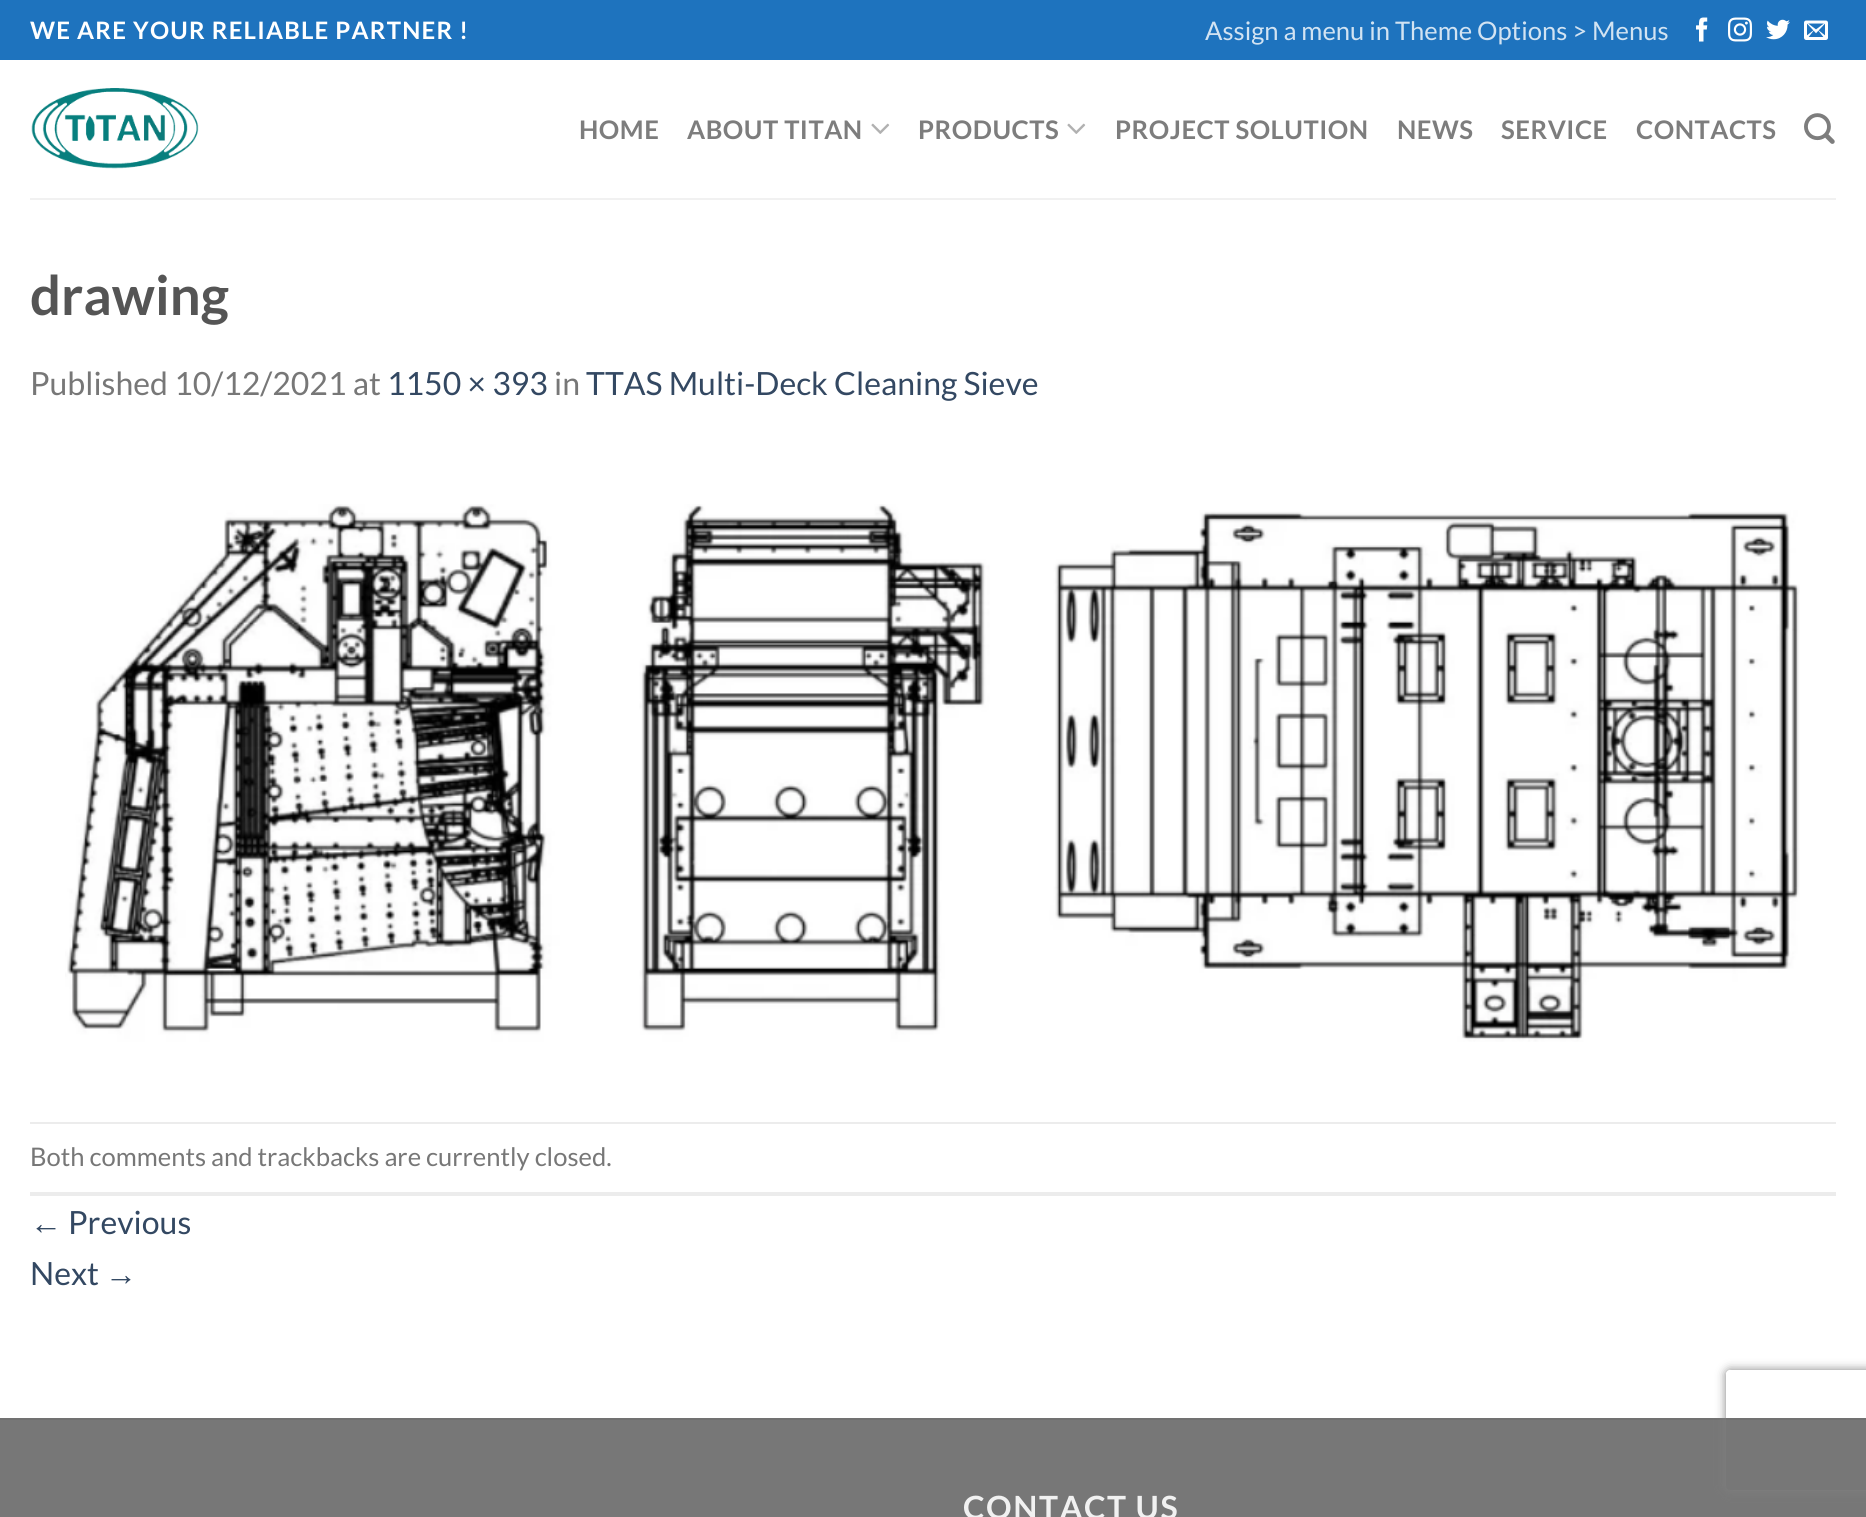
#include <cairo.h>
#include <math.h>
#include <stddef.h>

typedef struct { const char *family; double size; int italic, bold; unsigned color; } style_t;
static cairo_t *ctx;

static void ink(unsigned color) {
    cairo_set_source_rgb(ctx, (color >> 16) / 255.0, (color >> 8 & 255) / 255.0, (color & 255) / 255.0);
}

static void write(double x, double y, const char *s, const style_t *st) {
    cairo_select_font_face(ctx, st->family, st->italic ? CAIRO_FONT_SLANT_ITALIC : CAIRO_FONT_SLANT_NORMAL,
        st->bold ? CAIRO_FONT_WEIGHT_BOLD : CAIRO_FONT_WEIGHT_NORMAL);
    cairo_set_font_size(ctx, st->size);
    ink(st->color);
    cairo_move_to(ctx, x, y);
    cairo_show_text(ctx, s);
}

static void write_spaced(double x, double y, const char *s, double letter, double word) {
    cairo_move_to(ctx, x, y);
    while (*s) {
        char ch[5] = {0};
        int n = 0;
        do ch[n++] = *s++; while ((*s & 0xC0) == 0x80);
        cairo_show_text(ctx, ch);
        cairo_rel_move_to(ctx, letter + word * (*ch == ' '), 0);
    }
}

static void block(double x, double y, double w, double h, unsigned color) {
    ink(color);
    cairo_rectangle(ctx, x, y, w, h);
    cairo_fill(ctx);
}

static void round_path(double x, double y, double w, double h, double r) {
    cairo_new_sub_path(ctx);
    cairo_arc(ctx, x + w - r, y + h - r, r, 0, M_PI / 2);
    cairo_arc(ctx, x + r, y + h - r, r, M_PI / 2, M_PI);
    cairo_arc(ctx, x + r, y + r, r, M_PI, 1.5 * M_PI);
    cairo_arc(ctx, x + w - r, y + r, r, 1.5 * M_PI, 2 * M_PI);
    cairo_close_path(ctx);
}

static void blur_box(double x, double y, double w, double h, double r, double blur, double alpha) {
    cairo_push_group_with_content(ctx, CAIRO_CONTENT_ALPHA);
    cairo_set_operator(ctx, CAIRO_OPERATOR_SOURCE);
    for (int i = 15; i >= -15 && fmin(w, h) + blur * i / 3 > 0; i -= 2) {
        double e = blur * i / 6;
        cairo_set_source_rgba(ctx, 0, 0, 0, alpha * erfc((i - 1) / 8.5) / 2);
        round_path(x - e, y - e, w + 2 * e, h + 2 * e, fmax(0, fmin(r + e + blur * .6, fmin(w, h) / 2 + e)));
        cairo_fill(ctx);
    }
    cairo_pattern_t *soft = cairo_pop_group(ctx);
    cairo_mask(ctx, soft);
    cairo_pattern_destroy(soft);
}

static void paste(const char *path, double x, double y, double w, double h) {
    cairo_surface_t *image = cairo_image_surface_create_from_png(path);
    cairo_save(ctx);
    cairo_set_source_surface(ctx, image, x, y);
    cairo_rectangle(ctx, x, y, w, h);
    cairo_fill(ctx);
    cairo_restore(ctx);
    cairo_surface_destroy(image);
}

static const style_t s1 = {"Lato", 25.6, 0, 0, 0xd2e3f2};
static const style_t s2 = {"Lato", 54.5, 0, 1, 0x555555};
static const style_t s3 = {"Lato", 32, 0, 0, 0x777777};
static const style_t s4 = {"Lato", 32, 0, 0, 0x334862};
static const style_t s5 = {"Lato", 25.6, 0, 0, 0x777777};
static const style_t s6 = {"Liberation Sans", 32, 0, 0, 0x334862};

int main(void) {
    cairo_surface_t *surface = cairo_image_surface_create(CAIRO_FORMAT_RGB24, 1866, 1517);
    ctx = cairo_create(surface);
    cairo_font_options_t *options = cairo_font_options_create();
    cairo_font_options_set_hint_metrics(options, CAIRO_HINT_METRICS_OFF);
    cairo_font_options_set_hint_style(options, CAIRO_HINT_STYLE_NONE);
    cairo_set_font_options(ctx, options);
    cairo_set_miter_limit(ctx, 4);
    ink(0xffffff);
    cairo_paint(ctx);
    block(0, 0, 1866, 60, 0x1e73be);
    cairo_select_font_face(ctx, "Lato", CAIRO_FONT_SLANT_NORMAL, CAIRO_FONT_WEIGHT_BOLD);
    cairo_set_font_size(ctx, 24);
    ink(0xffffff);
    write_spaced(30, 39, "WE ARE YOUR RELIABLE PARTNER !", 1.2, 0);
    write(1205, 40, "Assign a menu in Theme Options > Menus", &s1);
    paste("pic1.png", 1696, 17, 12, 25);
    paste("pic2.png", 1728, 17, 24, 25);
    paste("pic3.png", 1766, 19, 24, 21);
    paste("pic4.png", 1804, 20, 24, 20);
    paste("pic5.png", 31, 88, 168, 81);
    cairo_select_font_face(ctx, "Lato", CAIRO_FONT_SLANT_NORMAL, CAIRO_FONT_WEIGHT_BOLD);
    ink(0x7d7d7d);
    write_spaced(579, 139, "HOME", 0.5, 0);
    write_spaced(687, 139, "ABOUT TITAN", 0.5, 0);
    paste("pic6.png", 871, 123, 19, 11);
    write_spaced(918, 139, "PRODUCTS", 0.5, 0);
    paste("pic6.png", 1067, 123, 19, 11);
    write_spaced(1115, 139, "PROJECT SOLUTION", 0.5, 0);
    write_spaced(1397, 139, "NEWS", 0.5, 0);
    write_spaced(1501, 139, "SERVICE", 0.5, 0);
    write_spaced(1636, 139, "CONTACTS", 0.5, 0);
    paste("pic7.png", 1804, 113, 31, 31);
    block(30, 198, 1806, 2, 0xf1f1f1);
    write(30, 315, "drawing", &s2);
    write(30, 395, "Published 10/12/2021 at", &s3);
    write(387, 395, "1150 × 393", &s4);
    write(554, 395, "in", &s3);
    write(586, 395, "TTAS Multi-Deck Cleaning Sieve", &s4);
    paste("pic8.png", 65, 504, 1735, 538);
    block(30, 1122, 1806, 2, 0xececec);
    block(30, 1192, 1806, 4, 0xececec);
    write(30, 1166, "Both comments and trackbacks are currently closed.", &s5);
    write(30, 1234, "←", &s6);
    write(68, 1234, "Previous", &s4);
    write(30, 1285, "Next", &s4);
    write(105, 1285, "→", &s6);
    block(0, 1420, 1866, 97, 0x777777);
    block(0, 1418, 1866, 2, 0x717171);
    cairo_select_font_face(ctx, "Lato", CAIRO_FONT_SLANT_NORMAL, CAIRO_FONT_WEIGHT_BOLD);
    ink(0xf1f1f1);
    write_spaced(963, 1519, "CONTACT US", 1.6, 0);
    cairo_save(ctx);
    cairo_set_fill_rule(ctx, CAIRO_FILL_RULE_EVEN_ODD);
    cairo_new_path(ctx);
    cairo_move_to(ctx, 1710, 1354);
    cairo_line_to(ctx, 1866, 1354);
    cairo_line_to(ctx, 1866, 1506);
    cairo_line_to(ctx, 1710, 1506);
    cairo_close_path(ctx);
    cairo_move_to(ctx, 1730, 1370);
    cairo_line_to(ctx, 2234, 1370);
    cairo_curve_to(ctx, 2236, 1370, 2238, 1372, 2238, 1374);
    cairo_line_to(ctx, 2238, 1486);
    cairo_curve_to(ctx, 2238, 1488, 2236, 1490, 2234, 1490);
    cairo_line_to(ctx, 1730, 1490);
    cairo_curve_to(ctx, 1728, 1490, 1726, 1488, 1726, 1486);
    cairo_line_to(ctx, 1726, 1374);
    cairo_curve_to(ctx, 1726, 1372, 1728, 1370, 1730, 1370);
    cairo_close_path(ctx);
    cairo_clip(ctx);
    ink(0x808080);
    blur_box(1726, 1370, 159, 120, 4, 5, 1);
    cairo_restore(ctx);
    cairo_surface_write_to_png(surface, "screenshot.png");
    cairo_font_options_destroy(options);
    cairo_destroy(ctx);
    cairo_surface_destroy(surface);
    return 0;
}
